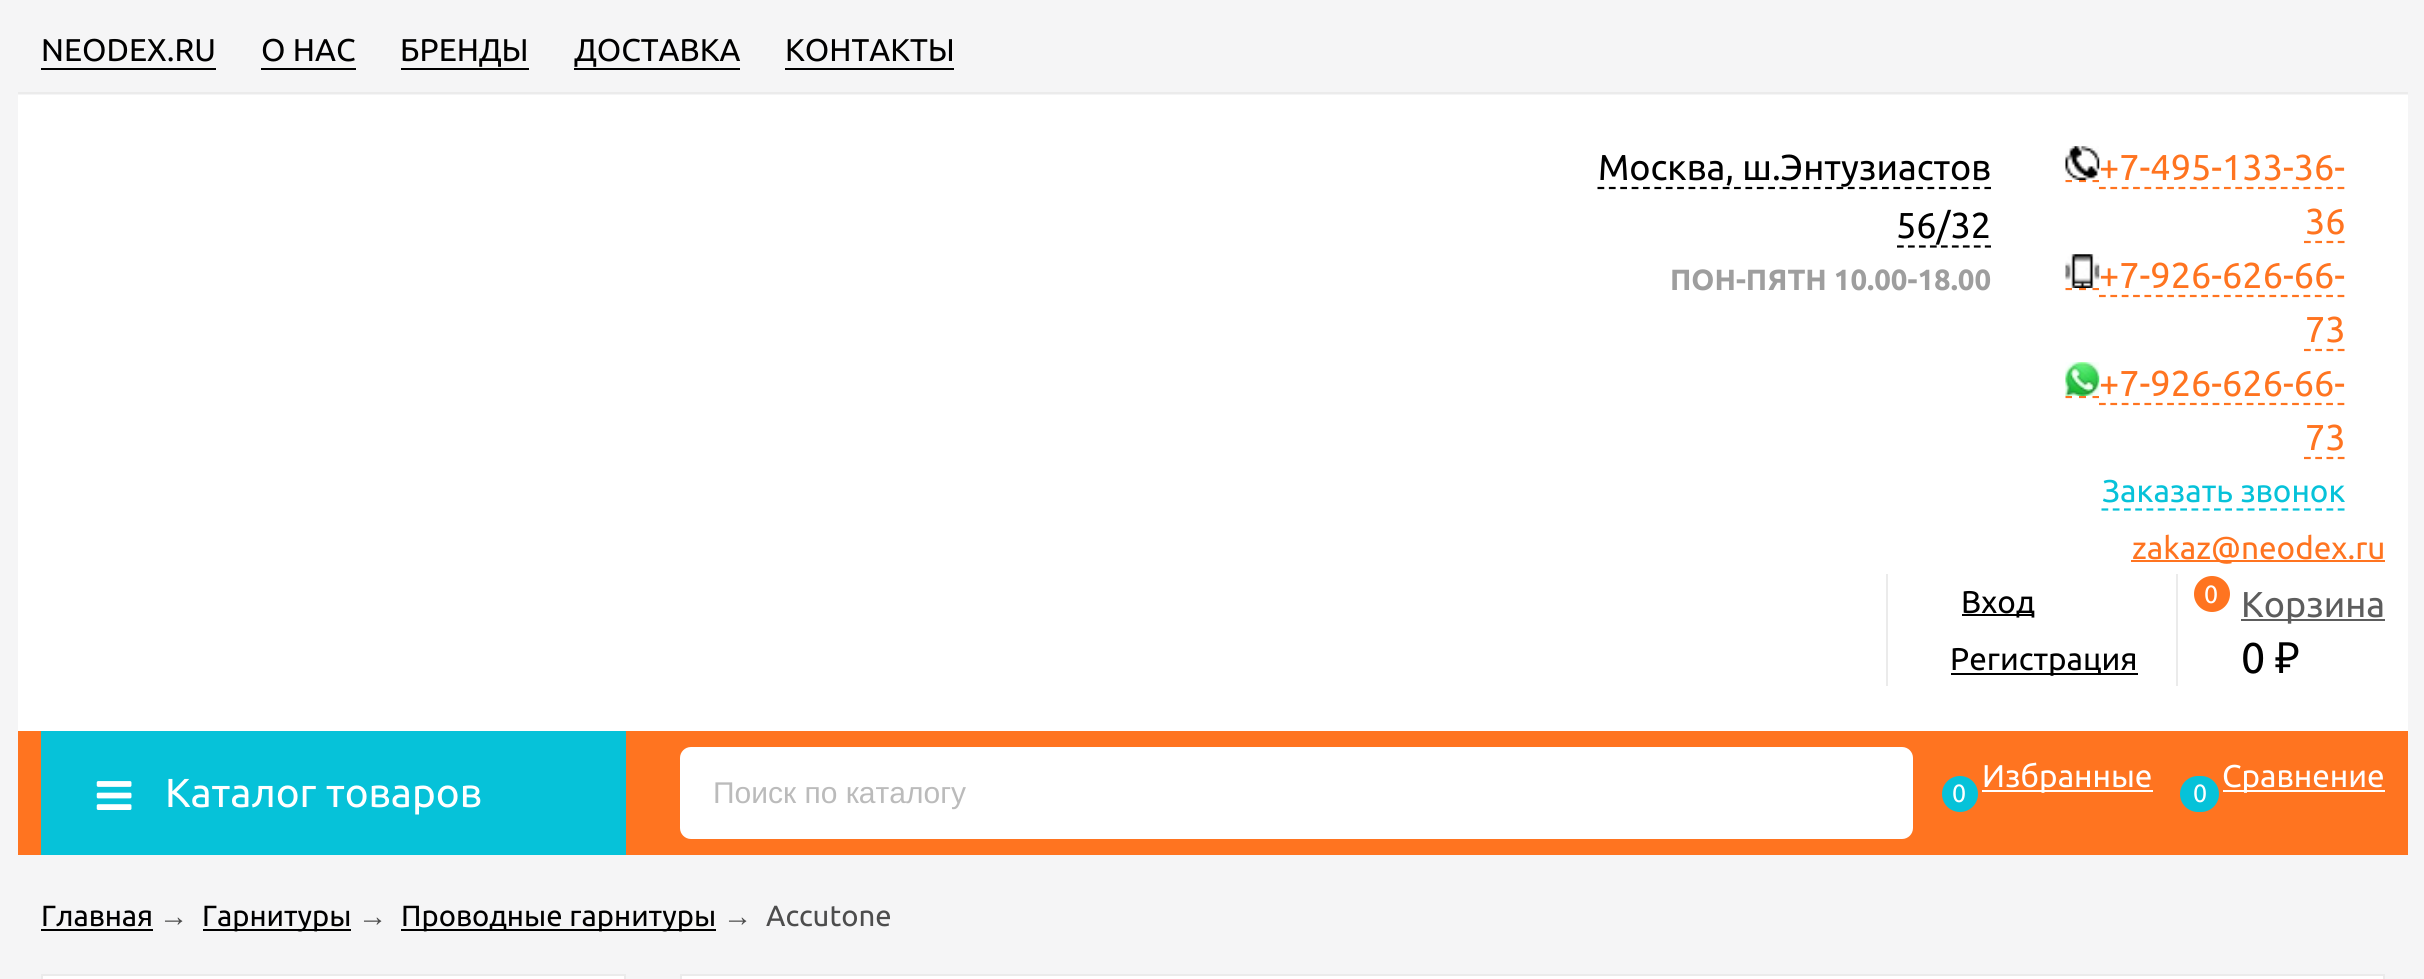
#include <cairo.h>
#include <math.h>
#include <stddef.h>

typedef struct { const char *family; double size; int italic, bold; unsigned color; } style_t;
static cairo_t *ctx;

static void ink(unsigned color) {
    cairo_set_source_rgb(ctx, (color >> 16) / 255.0, (color >> 8 & 255) / 255.0, (color & 255) / 255.0);
}

static void write(double x, double y, const char *s, const style_t *st) {
    cairo_select_font_face(ctx, st->family, st->italic ? CAIRO_FONT_SLANT_ITALIC : CAIRO_FONT_SLANT_NORMAL,
        st->bold ? CAIRO_FONT_WEIGHT_BOLD : CAIRO_FONT_WEIGHT_NORMAL);
    cairo_set_font_size(ctx, st->size);
    ink(st->color);
    cairo_move_to(ctx, x, y);
    cairo_show_text(ctx, s);
}

static void block(double x, double y, double w, double h, unsigned color) {
    ink(color);
    cairo_rectangle(ctx, x, y, w, h);
    cairo_fill(ctx);
}

static void round_path(double x, double y, double w, double h, double r) {
    cairo_new_sub_path(ctx);
    cairo_arc(ctx, x + w - r, y + h - r, r, 0, M_PI / 2);
    cairo_arc(ctx, x + r, y + h - r, r, M_PI / 2, M_PI);
    cairo_arc(ctx, x + r, y + r, r, M_PI, 1.5 * M_PI);
    cairo_arc(ctx, x + w - r, y + r, r, 1.5 * M_PI, 2 * M_PI);
    cairo_close_path(ctx);
}

static void paste(const char *path, double x, double y, double w, double h) {
    cairo_surface_t *image = cairo_image_surface_create_from_png(path);
    cairo_save(ctx);
    cairo_set_source_surface(ctx, image, x, y);
    cairo_rectangle(ctx, x, y, w, h);
    cairo_fill(ctx);
    cairo_restore(ctx);
    cairo_surface_destroy(image);
}

static const style_t s1 = {"Ubuntu", 31.5, 0, 0, 0x000000};
static const style_t s2 = {"Ubuntu", 36, 0, 0, 0x000000};
static const style_t s3 = {"Ubuntu", 29.25, 0, 1, 0x9e9e9e};
static const style_t s4 = {"Ubuntu", 36, 0, 0, 0xff7420};
static const style_t s5 = {"Ubuntu", 31.5, 0, 0, 0x06c2d9};
static const style_t s6 = {"Ubuntu", 31.5, 0, 0, 0xff7420};
static const style_t s7 = {"Ubuntu", 25, 0, 0, 0xffffff};
static const style_t s8 = {"Ubuntu", 36, 0, 0, 0x5d5d5d};
static const style_t s9 = {"Ubuntu", 43, 0, 0, 0x000000};
static const style_t s10 = {"Noto Sans", 43, 0, 0, 0x000000};
static const style_t s11 = {"Ubuntu", 40.5, 0, 0, 0xffffff};
static const style_t s12 = {"Liberation Sans", 30, 0, 0, 0xbbbbbb};
static const style_t s13 = {"Ubuntu", 31.5, 0, 0, 0xffffff};
static const style_t s14 = {"Ubuntu", 29.25, 0, 0, 0x000000};
static const style_t s15 = {"Liberation Sans", 29.25, 0, 0, 0x4d4d4d};
static const style_t s16 = {"Ubuntu", 29.25, 0, 0, 0x4d4d4d};

int main(void) {
    cairo_surface_t *surface = cairo_image_surface_create(CAIRO_FORMAT_RGB24, 2424, 979);
    ctx = cairo_create(surface);
    cairo_font_options_t *options = cairo_font_options_create();
    cairo_font_options_set_hint_metrics(options, CAIRO_HINT_METRICS_OFF);
    cairo_font_options_set_hint_style(options, CAIRO_HINT_STYLE_NONE);
    cairo_set_font_options(ctx, options);
    cairo_set_miter_limit(ctx, 4);
    ink(0xf5f5f6);
    cairo_paint(ctx);
    block(18, 92, 2390, 2, 0xebebeb);
    write(41, 61, "NEODEX.RU", &s1);
    block(41, 68, 175, 2, 0x000000);
    write(261, 61, "О НАС", &s1);
    block(261, 68, 95, 2, 0x000000);
    write(400, 61, "БРЕНДЫ", &s1);
    block(401, 68, 128, 2, 0x000000);
    write(574, 61, "ДОСТАВКА", &s1);
    block(574, 68, 166, 2, 0x000000);
    write(785, 61, "КОНТАКТЫ", &s1);
    block(785, 68, 169, 2, 0x000000);
    block(18, 95, 2390, 636, 0xffffff);
    cairo_new_path(ctx);
    cairo_move_to(ctx, 1597.5, 188);
    cairo_line_to(ctx, 1991, 188);
    ink(0x000000);
    cairo_set_line_width(ctx, 2.2);
    cairo_set_dash(ctx, (double[]){6.75, 4.63}, 2, 0);
    cairo_stroke(ctx);
    write(1598, 180, "Москва, ш.Энтузиастов", &s2);
    write(1896, 238, "56/32", &s2);
    cairo_new_path(ctx);
    cairo_move_to(ctx, 1897, 246.5);
    cairo_line_to(ctx, 1991, 246.5);
    cairo_set_dash(ctx, (double[]){6.75, 4.23}, 2, 0);
    cairo_stroke(ctx);
    write(1670, 290, "ПОН-ПЯТН 10.00-18.00", &s3);
    cairo_new_path(ctx);
    cairo_move_to(ctx, 2065.5, 181);
    cairo_line_to(ctx, 2072, 181);
    cairo_move_to(ctx, 2079, 181);
    cairo_line_to(ctx, 2086, 181);
    cairo_move_to(ctx, 2092.5, 181);
    cairo_line_to(ctx, 2099, 181);
    ink(0xff7420);
    cairo_set_dash(ctx, NULL, 0, 0);
    cairo_stroke(ctx);
    paste("pic1.png", 2065, 146, 35, 34);
    write(2099, 180, "+7-495-133-36-", &s4);
    cairo_new_path(ctx);
    cairo_move_to(ctx, 2099, 188);
    cairo_line_to(ctx, 2344.5, 188);
    cairo_set_dash(ctx, (double[]){6.75, 4.61}, 2, 0);
    cairo_stroke(ctx);
    write(2305, 234, "36", &s4);
    cairo_new_path(ctx);
    cairo_move_to(ctx, 2304, 242);
    cairo_line_to(ctx, 2344.5, 242);
    cairo_set_dash(ctx, (double[]){6.75, 4.5}, 2, 0);
    cairo_stroke(ctx);
    cairo_new_path(ctx);
    cairo_move_to(ctx, 2065.5, 289);
    cairo_line_to(ctx, 2072, 289);
    cairo_move_to(ctx, 2079, 289);
    cairo_line_to(ctx, 2086, 289);
    cairo_move_to(ctx, 2092.5, 289);
    cairo_line_to(ctx, 2099, 289);
    cairo_set_dash(ctx, NULL, 0, 0);
    cairo_stroke(ctx);
    paste("pic2.png", 2065, 254, 35, 34);
    write(2099, 288, "+7-926-626-66-", &s4);
    cairo_new_path(ctx);
    cairo_move_to(ctx, 2099, 296);
    cairo_line_to(ctx, 2344.5, 296);
    cairo_set_dash(ctx, (double[]){6.75, 4.61}, 2, 0);
    cairo_stroke(ctx);
    write(2305, 342, "73", &s4);
    cairo_new_path(ctx);
    cairo_move_to(ctx, 2304, 350);
    cairo_line_to(ctx, 2344.5, 350);
    cairo_set_dash(ctx, (double[]){6.75, 4.5}, 2, 0);
    cairo_stroke(ctx);
    cairo_new_path(ctx);
    cairo_move_to(ctx, 2065.5, 397);
    cairo_line_to(ctx, 2072, 397);
    cairo_move_to(ctx, 2079, 397);
    cairo_line_to(ctx, 2086, 397);
    cairo_move_to(ctx, 2092.5, 397);
    cairo_line_to(ctx, 2099, 397);
    cairo_set_dash(ctx, NULL, 0, 0);
    cairo_stroke(ctx);
    paste("pic3.png", 2065, 362, 35, 34);
    write(2099, 396, "+7-926-626-66-", &s4);
    cairo_new_path(ctx);
    cairo_move_to(ctx, 2099, 404);
    cairo_line_to(ctx, 2344.5, 404);
    cairo_set_dash(ctx, (double[]){6.75, 4.61}, 2, 0);
    cairo_stroke(ctx);
    write(2305, 450, "73", &s4);
    cairo_new_path(ctx);
    cairo_move_to(ctx, 2304, 458);
    cairo_line_to(ctx, 2344.5, 458);
    cairo_set_dash(ctx, (double[]){6.75, 4.5}, 2, 0);
    cairo_stroke(ctx);
    write(2102, 502, "Заказать звонок", &s5);
    cairo_new_path(ctx);
    cairo_move_to(ctx, 2101.5, 509.5);
    cairo_line_to(ctx, 2344.5, 509.5);
    cairo_stroke(ctx);
    block(2131, 560, 254, 2, 0xff7420);
    write(2132, 559, "zakaz@neodex.ru", &s6);
    block(2176, 574, 2, 112, 0xebebeb);
    block(1886, 574, 2, 112, 0xebebeb);
    block(1962, 614, 72, 2, 0x000000);
    write(1961, 613, "Вход", &s1);
    block(1951, 673, 187, 2, 0x000000);
    write(1950, 670, "Регистрация", &s1);
    ink(0xff7420);
    cairo_new_path(ctx);
    cairo_arc(ctx, 2212, 594, 18, 0, 2 * M_PI);
    cairo_fill(ctx);
    write(2204, 603, "0", &s7);
    block(2241, 619, 144, 2, 0x5d5d5d);
    write(2241, 617, "Корзина", &s8);
    write(2241, 673, "0", &s9);
    write(2275, 673, "₽", &s10);
    block(18, 731, 2390, 124, 0xff7420);
    block(41, 731, 585, 124, 0x06c2d9);
    paste("pic4.png", 96, 781, 36, 29);
    write(165, 807, "Каталог товаров", &s11);
    round_path(680, 747, 1233, 92, 11);
    cairo_fill(ctx);
    write(713, 803, "Поиск по каталогу", &s12);
    ink(0x06c2d9);
    cairo_new_path(ctx);
    cairo_arc(ctx, 1960, 794, 18, 0, 2 * M_PI);
    cairo_fill(ctx);
    write(1952, 802, "0", &s7);
    block(1982, 790, 171, 2, 0xffffff);
    write(1982, 787, "Избранные", &s13);
    ink(0x06c2d9);
    round_path(2180, 776, 39, 36, 18);
    cairo_fill(ctx);
    write(2193, 802, "0", &s7);
    block(2223, 790, 162, 2, 0xffffff);
    write(2222, 787, "Сравнение", &s13);
    write(41, 926, "Главная", &s14);
    block(41, 929, 112, 2, 0x000000);
    write(159, 926, "→", &s15);
    block(203, 929, 148, 2, 0x000000);
    write(202, 926, "Гарнитуры", &s14);
    write(358, 926, "→", &s15);
    block(401, 929, 315, 2, 0x000000);
    write(401, 926, "Проводные гарнитуры", &s14);
    write(723, 926, "→", &s15);
    write(766, 926, "Accutone", &s16);
    ink(0xffffff);
    cairo_rectangle(ctx, 42, 975, 583, 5);
    cairo_fill_preserve(ctx);
    ink(0xebebeb);
    cairo_set_line_width(ctx, 2);
    cairo_set_dash(ctx, NULL, 0, 0);
    cairo_stroke(ctx);
    ink(0xffffff);
    cairo_rectangle(ctx, 681, 975, 1703, 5);
    cairo_fill_preserve(ctx);
    ink(0xebebeb);
    cairo_stroke(ctx);
    cairo_surface_write_to_png(surface, "screenshot.png");
    cairo_font_options_destroy(options);
    cairo_destroy(ctx);
    cairo_surface_destroy(surface);
    return 0;
}
